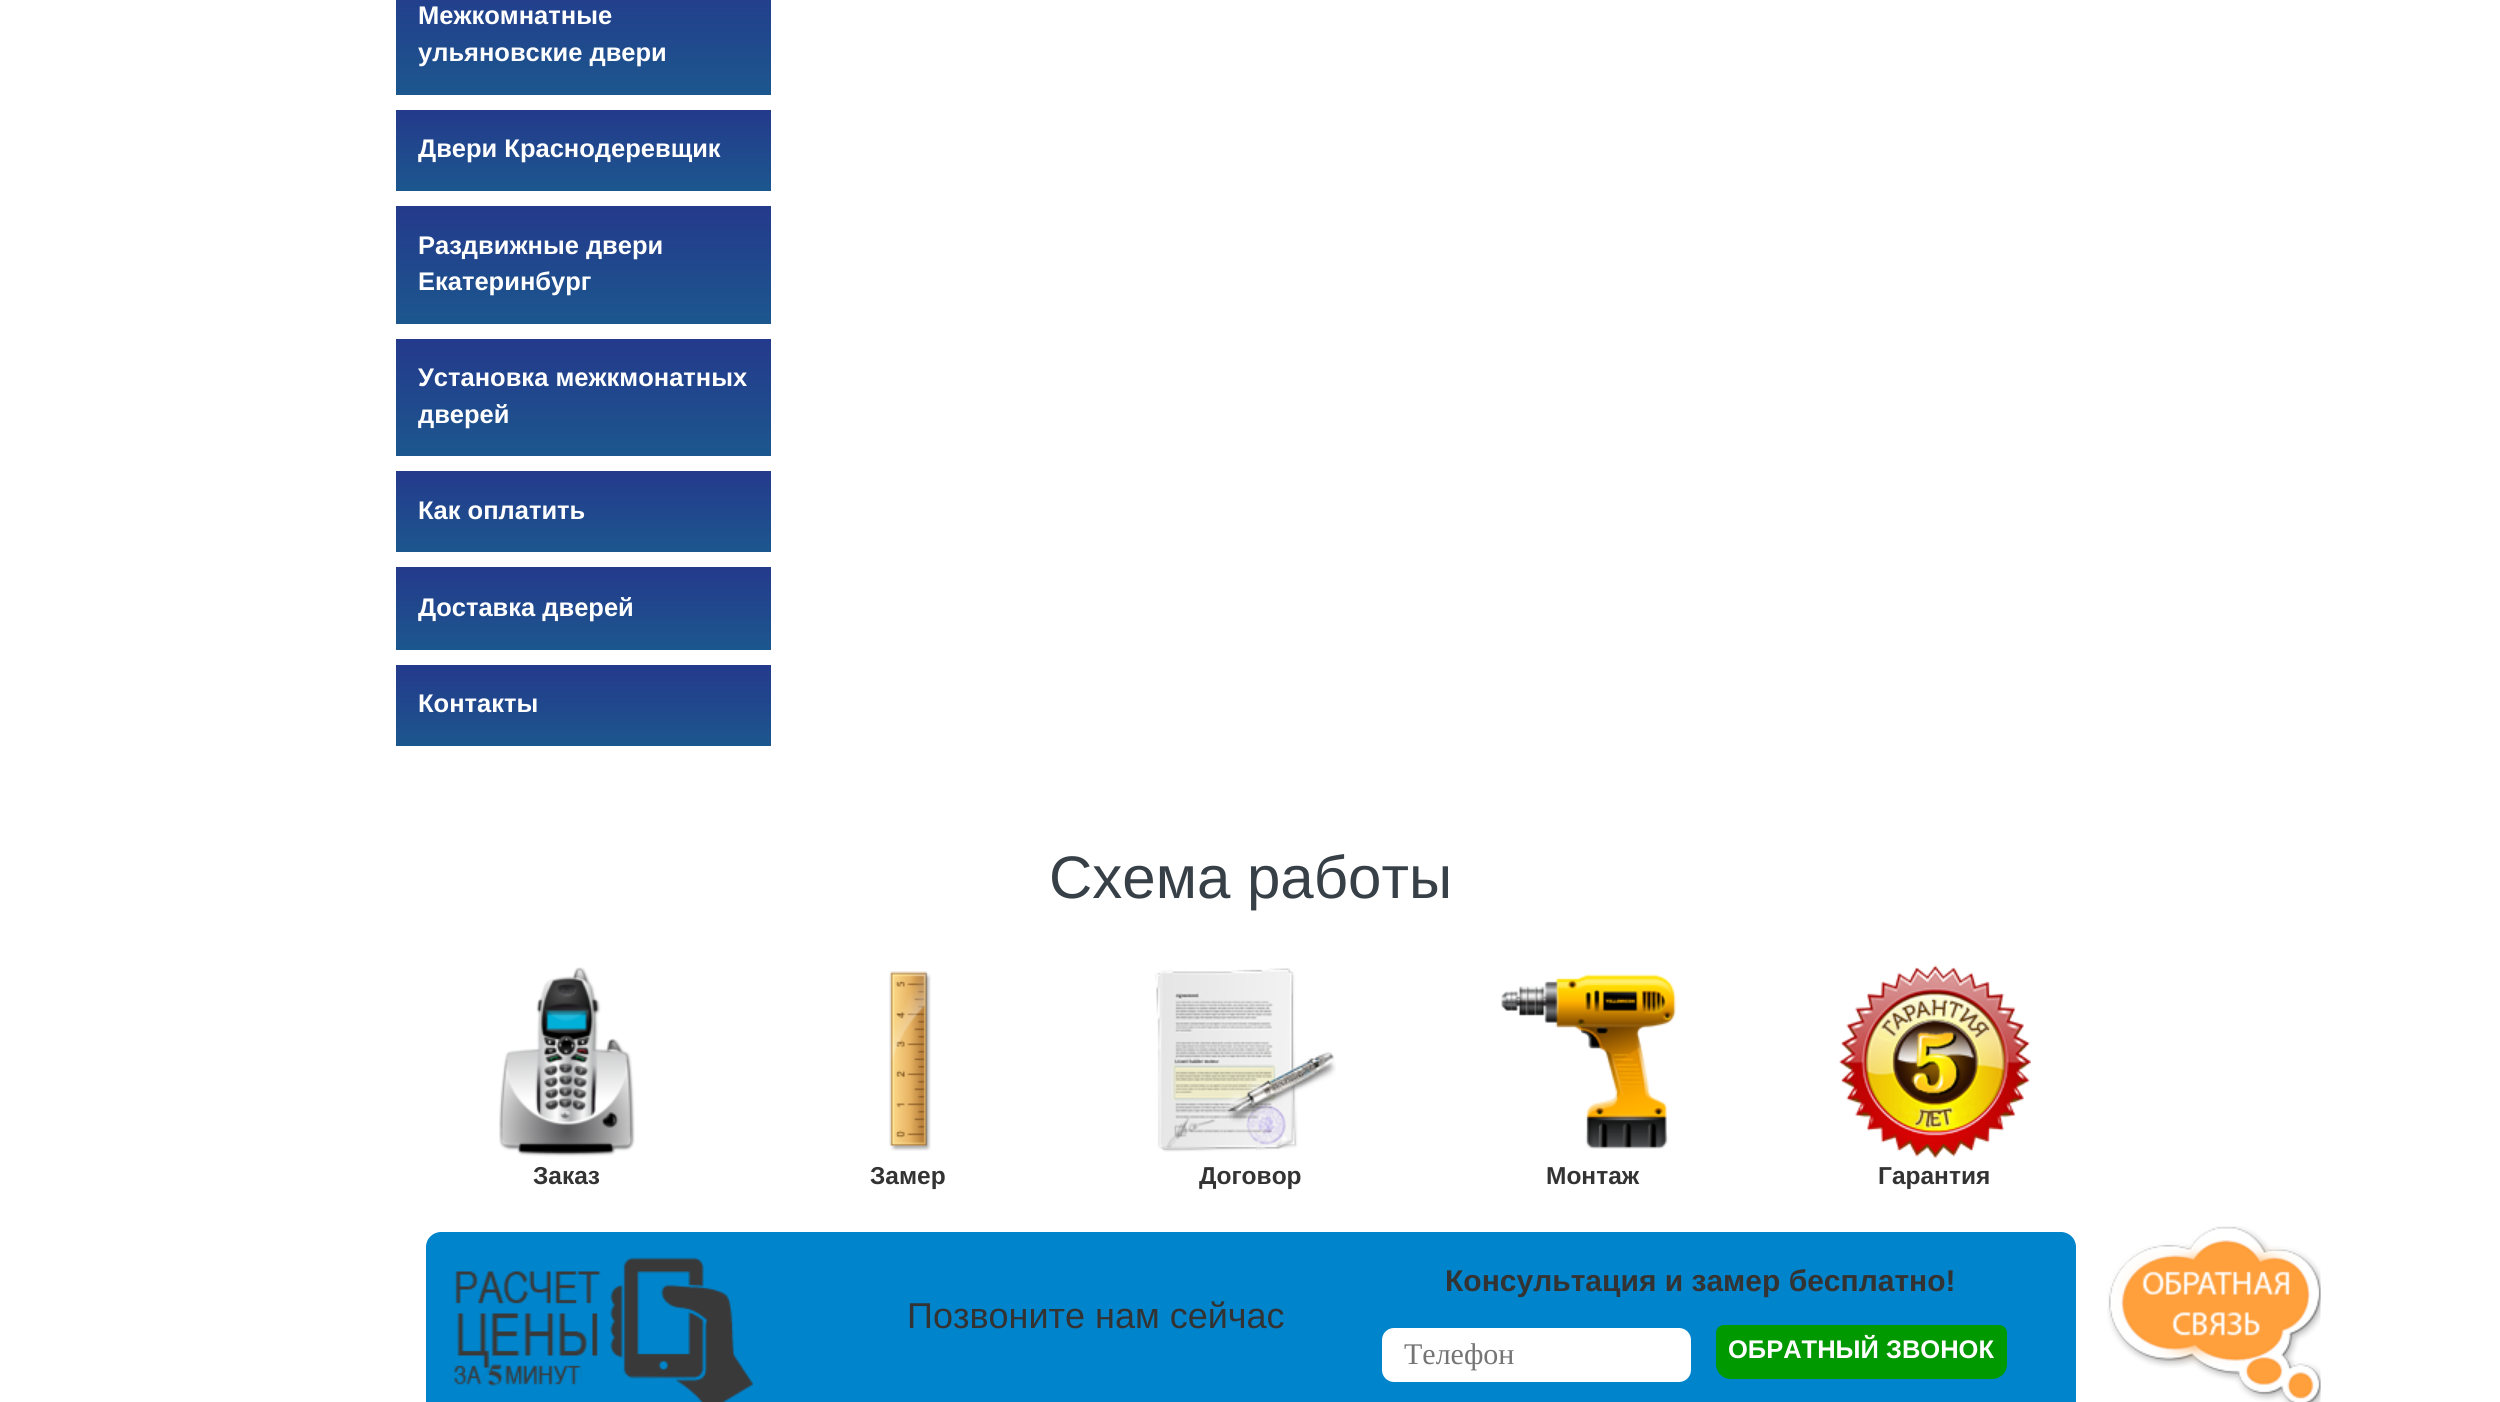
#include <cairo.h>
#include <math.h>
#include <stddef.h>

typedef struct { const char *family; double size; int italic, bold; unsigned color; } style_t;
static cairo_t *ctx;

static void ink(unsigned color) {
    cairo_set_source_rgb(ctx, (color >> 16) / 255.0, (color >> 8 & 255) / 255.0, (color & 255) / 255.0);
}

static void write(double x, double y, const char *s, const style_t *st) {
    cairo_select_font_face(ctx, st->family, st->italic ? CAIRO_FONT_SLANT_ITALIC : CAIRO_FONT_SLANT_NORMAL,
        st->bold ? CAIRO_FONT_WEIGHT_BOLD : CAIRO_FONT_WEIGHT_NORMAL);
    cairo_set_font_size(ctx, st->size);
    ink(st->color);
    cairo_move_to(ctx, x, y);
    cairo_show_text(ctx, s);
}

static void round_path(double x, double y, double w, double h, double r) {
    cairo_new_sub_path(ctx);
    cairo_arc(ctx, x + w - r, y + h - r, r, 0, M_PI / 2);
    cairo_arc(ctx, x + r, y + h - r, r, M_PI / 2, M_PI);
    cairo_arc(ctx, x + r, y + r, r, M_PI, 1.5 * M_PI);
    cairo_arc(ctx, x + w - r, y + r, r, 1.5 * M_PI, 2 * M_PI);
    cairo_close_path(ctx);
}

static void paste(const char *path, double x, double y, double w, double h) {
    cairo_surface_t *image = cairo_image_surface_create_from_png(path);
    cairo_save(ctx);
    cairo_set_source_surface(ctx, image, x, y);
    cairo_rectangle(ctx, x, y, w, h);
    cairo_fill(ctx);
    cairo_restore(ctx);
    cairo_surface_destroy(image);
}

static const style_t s1 = {"Liberation Sans", 25.5, 0, 1, 0xffffff};
static const style_t s2 = {"Liberation Sans", 60, 0, 0, 0x384047};
static const style_t s3 = {"Liberation Sans", 24.5, 0, 1, 0x333333};
static const style_t s4 = {"Liberation Sans", 36, 0, 0, 0x333333};
static const style_t s5 = {"Liberation Sans", 30, 0, 1, 0x333333};
static const style_t s6 = {"Liberation Serif", 30, 0, 0, 0x757575};

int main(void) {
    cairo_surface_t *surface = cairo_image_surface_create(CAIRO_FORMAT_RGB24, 2500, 1402);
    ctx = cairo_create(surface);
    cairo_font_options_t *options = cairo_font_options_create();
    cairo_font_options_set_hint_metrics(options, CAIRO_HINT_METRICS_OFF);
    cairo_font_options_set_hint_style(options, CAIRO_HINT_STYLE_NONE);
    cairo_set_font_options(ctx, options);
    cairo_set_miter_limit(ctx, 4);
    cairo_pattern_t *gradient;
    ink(0xffffff);
    cairo_paint(ctx);
    gradient = cairo_pattern_create_linear(584, -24, 584, 95);
    cairo_pattern_add_color_stop_rgba(gradient, 0.01, 0.141, 0.227, 0.549, 1);
    cairo_pattern_add_color_stop_rgba(gradient, 1, 0.11, 0.341, 0.557, 1);
    cairo_set_source(ctx, gradient);
    cairo_pattern_destroy(gradient);
    cairo_rectangle(ctx, 396, 0, 375, 95);
    cairo_fill(ctx);
    write(418, 24, "Межкомнатные", &s1);
    write(418, 61, "ульяновские двери", &s1);
    gradient = cairo_pattern_create_linear(584, 109, 584, 191);
    cairo_pattern_add_color_stop_rgba(gradient, 0.01, 0.141, 0.227, 0.549, 1);
    cairo_pattern_add_color_stop_rgba(gradient, 1, 0.11, 0.341, 0.557, 1);
    cairo_set_source(ctx, gradient);
    cairo_pattern_destroy(gradient);
    cairo_rectangle(ctx, 396, 110, 375, 81);
    cairo_fill(ctx);
    write(418, 157, "Двери Краснодеревщик", &s1);
    gradient = cairo_pattern_create_linear(584, 206, 584, 324);
    cairo_pattern_add_color_stop_rgba(gradient, 0.01, 0.141, 0.227, 0.549, 1);
    cairo_pattern_add_color_stop_rgba(gradient, 1, 0.11, 0.341, 0.557, 1);
    cairo_set_source(ctx, gradient);
    cairo_pattern_destroy(gradient);
    cairo_rectangle(ctx, 396, 206, 375, 118);
    cairo_fill(ctx);
    write(418, 254, "Раздвижные двери", &s1);
    write(418, 290, "Екатеринбург", &s1);
    gradient = cairo_pattern_create_linear(584, 339, 584, 456);
    cairo_pattern_add_color_stop_rgba(gradient, 0.01, 0.141, 0.227, 0.549, 1);
    cairo_pattern_add_color_stop_rgba(gradient, 1, 0.11, 0.341, 0.557, 1);
    cairo_set_source(ctx, gradient);
    cairo_pattern_destroy(gradient);
    cairo_rectangle(ctx, 396, 339, 375, 117);
    cairo_fill(ctx);
    write(418, 386, "Установка межкмонатных", &s1);
    write(418, 423, "дверей", &s1);
    gradient = cairo_pattern_create_linear(584, 471, 584, 552);
    cairo_pattern_add_color_stop_rgba(gradient, 0.01, 0.141, 0.227, 0.549, 1);
    cairo_pattern_add_color_stop_rgba(gradient, 1, 0.11, 0.341, 0.557, 1);
    cairo_set_source(ctx, gradient);
    cairo_pattern_destroy(gradient);
    cairo_rectangle(ctx, 396, 471, 375, 81);
    cairo_fill(ctx);
    write(418, 519, "Как оплатить", &s1);
    gradient = cairo_pattern_create_linear(584, 567, 584, 650);
    cairo_pattern_add_color_stop_rgba(gradient, 0.01, 0.141, 0.227, 0.549, 1);
    cairo_pattern_add_color_stop_rgba(gradient, 1, 0.11, 0.341, 0.557, 1);
    cairo_set_source(ctx, gradient);
    cairo_pattern_destroy(gradient);
    cairo_rectangle(ctx, 396, 567, 375, 83);
    cairo_fill(ctx);
    write(418, 616, "Доставка дверей", &s1);
    gradient = cairo_pattern_create_linear(584, 665, 584, 746);
    cairo_pattern_add_color_stop_rgba(gradient, 0.01, 0.141, 0.227, 0.549, 1);
    cairo_pattern_add_color_stop_rgba(gradient, 1, 0.11, 0.341, 0.557, 1);
    cairo_set_source(ctx, gradient);
    cairo_pattern_destroy(gradient);
    cairo_rectangle(ctx, 396, 665, 375, 81);
    cairo_fill(ctx);
    write(418, 712, "Контакты", &s1);
    write(1049, 898, "Схема работы", &s2);
    paste("pic1.png", 499, 967, 136, 190);
    write(533, 1184, "Заказ", &s3);
    paste("pic2.png", 889, 971, 42, 180);
    write(870, 1184, "Замер", &s3);
    paste("pic3.png", 1155, 968, 181, 184);
    write(1199, 1184, "Договор", &s3);
    paste("pic4.png", 1501, 974, 175, 175);
    write(1546, 1184, "Монтаж", &s3);
    paste("pic5.png", 1839, 965, 192, 193);
    write(1878, 1184, "Гарантия", &s3);
    ink(0x0084cb);
    round_path(426, 1232, 1650, 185, 15);
    cairo_fill(ctx);
    paste("pic6.png", 454, 1257, 299, 145);
    write(907, 1328, "Позвоните нам сейчас", &s4);
    write(1445, 1291, "Консультация и замер бесплатно!", &s5);
    ink(0xffffff);
    round_path(1380.5, 1326.5, 312, 57, 13.5);
    cairo_fill_preserve(ctx);
    ink(0x0084cb);
    cairo_set_line_width(ctx, 3);
    cairo_stroke(ctx);
    write(1404, 1364, "Телефон", &s6);
    ink(0x009900);
    cairo_new_path(ctx);
    cairo_move_to(ctx, 1724, 1325);
    cairo_line_to(ctx, 1999, 1325);
    cairo_curve_to(ctx, 2003.5, 1325, 2007, 1328.5, 2007, 1333);
    cairo_line_to(ctx, 2007, 1364);
    cairo_curve_to(ctx, 2007, 1372.5, 2000.5, 1379, 1992, 1379);
    cairo_line_to(ctx, 1731, 1379);
    cairo_curve_to(ctx, 1722.5, 1379, 1716, 1372.5, 1716, 1364);
    cairo_line_to(ctx, 1716, 1333);
    cairo_curve_to(ctx, 1716, 1328.5, 1719.5, 1325, 1724, 1325);
    cairo_close_path(ctx);
    cairo_fill(ctx);
    write(1728, 1358, "ОБРАТНЫЙ ЗВОНОК", &s1);
    paste("pic7.png", 2107, 1226, 214, 176);
    cairo_surface_write_to_png(surface, "screenshot.png");
    cairo_font_options_destroy(options);
    cairo_destroy(ctx);
    cairo_surface_destroy(surface);
    return 0;
}
